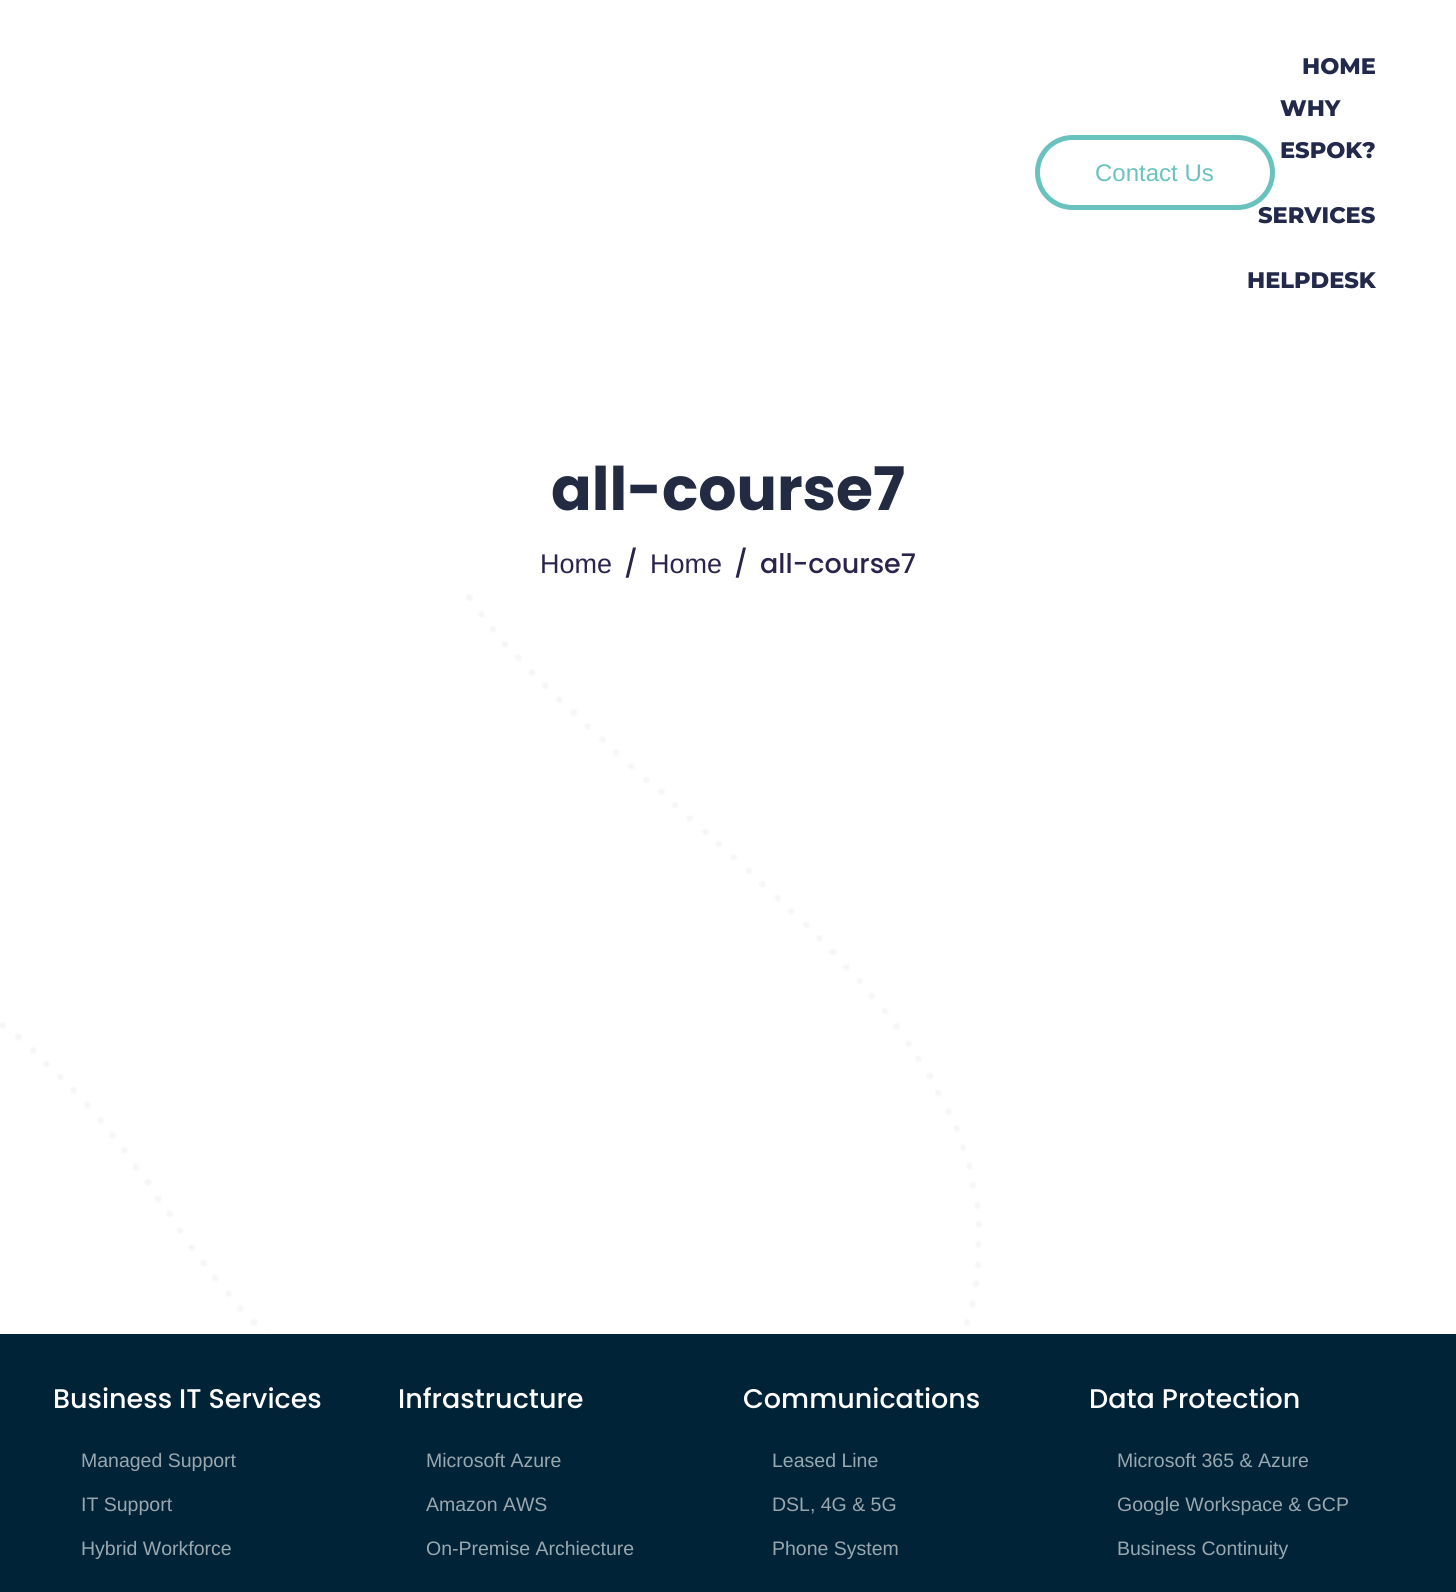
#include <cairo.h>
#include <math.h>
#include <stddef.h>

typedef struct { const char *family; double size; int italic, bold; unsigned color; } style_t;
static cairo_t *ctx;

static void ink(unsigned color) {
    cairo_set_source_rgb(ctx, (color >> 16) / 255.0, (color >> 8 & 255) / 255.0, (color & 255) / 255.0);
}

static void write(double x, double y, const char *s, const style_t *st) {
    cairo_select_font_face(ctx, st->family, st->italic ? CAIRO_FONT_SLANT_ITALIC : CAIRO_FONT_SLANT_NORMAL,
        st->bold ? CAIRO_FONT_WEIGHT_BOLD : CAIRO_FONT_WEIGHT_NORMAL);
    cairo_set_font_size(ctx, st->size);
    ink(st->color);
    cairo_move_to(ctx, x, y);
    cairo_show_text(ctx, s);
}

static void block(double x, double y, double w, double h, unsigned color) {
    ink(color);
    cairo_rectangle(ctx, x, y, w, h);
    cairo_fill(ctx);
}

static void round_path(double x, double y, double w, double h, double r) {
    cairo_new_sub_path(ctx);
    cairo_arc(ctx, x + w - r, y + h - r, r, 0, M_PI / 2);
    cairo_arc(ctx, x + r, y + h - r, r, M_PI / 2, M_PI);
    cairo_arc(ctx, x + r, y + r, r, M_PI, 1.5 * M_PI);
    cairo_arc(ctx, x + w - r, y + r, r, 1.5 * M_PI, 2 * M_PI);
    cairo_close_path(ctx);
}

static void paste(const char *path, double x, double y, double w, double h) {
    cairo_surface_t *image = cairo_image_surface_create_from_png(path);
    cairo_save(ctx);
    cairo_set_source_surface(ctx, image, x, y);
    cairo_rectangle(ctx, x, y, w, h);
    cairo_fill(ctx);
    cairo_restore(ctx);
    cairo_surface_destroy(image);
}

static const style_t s1 = {"Liberation Sans", 24, 0, 0, 0x6ac2bf};
static const style_t s2 = {"Montserrat ExtraBold", 22.5, 0, 0, 0x22294b};
static const style_t s3 = {"Poppins", 60, 0, 1, 0x232b42};
static const style_t s4 = {"Liberation Sans", 27, 0, 0, 0x2c234d};
static const style_t s5 = {"Poppins Medium", 27, 0, 0, 0x2c234d};
static const style_t s6 = {"Poppins Medium", 27, 0, 0, 0xffffff};
static const style_t s7 = {"Liberation Sans", 19.5, 0, 0, 0x99a7af};

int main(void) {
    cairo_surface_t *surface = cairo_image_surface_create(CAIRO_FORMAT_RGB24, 1456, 1592);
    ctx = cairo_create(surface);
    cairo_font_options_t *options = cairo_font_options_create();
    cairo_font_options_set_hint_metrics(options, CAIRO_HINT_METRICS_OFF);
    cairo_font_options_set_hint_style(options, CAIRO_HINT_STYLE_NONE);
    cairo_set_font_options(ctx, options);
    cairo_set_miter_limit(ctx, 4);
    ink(0xffffff);
    cairo_paint(ctx);
    round_path(1037.5, 137.5, 235, 70, 35);
    ink(0x6ac2bf);
    cairo_set_line_width(ctx, 5);
    cairo_stroke(ctx);
    write(1095, 181, "Contact Us", &s1);
    write(1302, 74, "HOME", &s2);
    write(1280, 116, "WHY", &s2);
    write(1280, 158, "ESPOK?", &s2);
    write(1258, 223, "SERVICES", &s2);
    write(1247, 288, "HELPDESK", &s2);
    paste("pic1.png", 0, 594, 983, 740);
    write(551, 510, "all-course7", &s3);
    write(540, 573, "Home", &s4);
    write(624, 573, "/", &s5);
    write(650, 573, "Home", &s4);
    write(734, 573, "/", &s5);
    write(760, 573, "all-course7", &s5);
    block(0, 1334, 1456, 258, 0x002337);
    write(53, 1408, "Business IT Services", &s6);
    write(81, 1467, "Managed Support", &s7);
    write(81, 1511, "IT Support", &s7);
    write(81, 1555, "Hybrid Workforce", &s7);
    write(398, 1408, "Infrastructure", &s6);
    write(426, 1467, "Microsoft Azure", &s7);
    write(426, 1511, "Amazon AWS", &s7);
    write(426, 1555, "On-Premise Archiecture", &s7);
    write(743, 1408, "Communications", &s6);
    write(772, 1467, "Leased Line", &s7);
    write(772, 1511, "DSL, 4G & 5G", &s7);
    write(772, 1555, "Phone System", &s7);
    write(1089, 1408, "Data Protection", &s6);
    write(1117, 1467, "Microsoft 365 & Azure", &s7);
    write(1117, 1511, "Google Workspace & GCP", &s7);
    write(1117, 1555, "Business Continuity", &s7);
    cairo_surface_write_to_png(surface, "screenshot.png");
    cairo_font_options_destroy(options);
    cairo_destroy(ctx);
    cairo_surface_destroy(surface);
    return 0;
}
